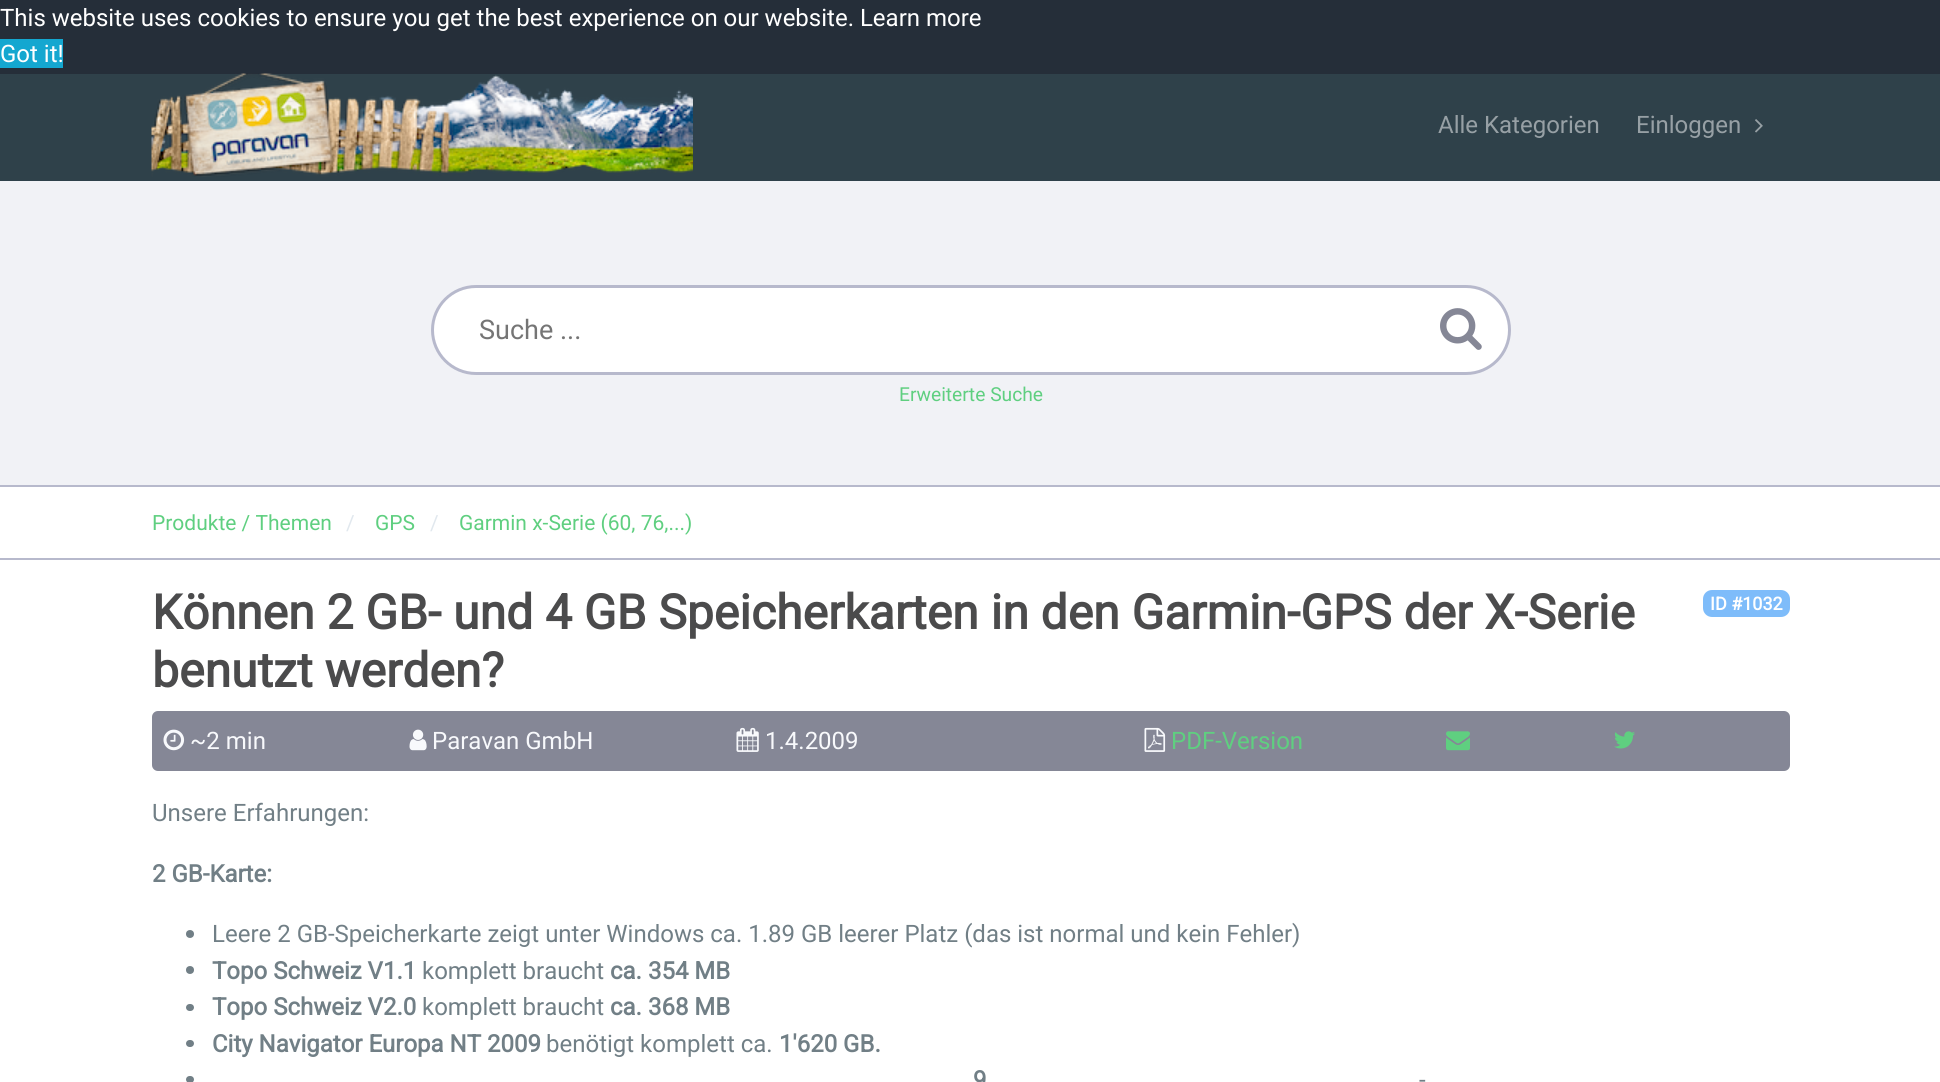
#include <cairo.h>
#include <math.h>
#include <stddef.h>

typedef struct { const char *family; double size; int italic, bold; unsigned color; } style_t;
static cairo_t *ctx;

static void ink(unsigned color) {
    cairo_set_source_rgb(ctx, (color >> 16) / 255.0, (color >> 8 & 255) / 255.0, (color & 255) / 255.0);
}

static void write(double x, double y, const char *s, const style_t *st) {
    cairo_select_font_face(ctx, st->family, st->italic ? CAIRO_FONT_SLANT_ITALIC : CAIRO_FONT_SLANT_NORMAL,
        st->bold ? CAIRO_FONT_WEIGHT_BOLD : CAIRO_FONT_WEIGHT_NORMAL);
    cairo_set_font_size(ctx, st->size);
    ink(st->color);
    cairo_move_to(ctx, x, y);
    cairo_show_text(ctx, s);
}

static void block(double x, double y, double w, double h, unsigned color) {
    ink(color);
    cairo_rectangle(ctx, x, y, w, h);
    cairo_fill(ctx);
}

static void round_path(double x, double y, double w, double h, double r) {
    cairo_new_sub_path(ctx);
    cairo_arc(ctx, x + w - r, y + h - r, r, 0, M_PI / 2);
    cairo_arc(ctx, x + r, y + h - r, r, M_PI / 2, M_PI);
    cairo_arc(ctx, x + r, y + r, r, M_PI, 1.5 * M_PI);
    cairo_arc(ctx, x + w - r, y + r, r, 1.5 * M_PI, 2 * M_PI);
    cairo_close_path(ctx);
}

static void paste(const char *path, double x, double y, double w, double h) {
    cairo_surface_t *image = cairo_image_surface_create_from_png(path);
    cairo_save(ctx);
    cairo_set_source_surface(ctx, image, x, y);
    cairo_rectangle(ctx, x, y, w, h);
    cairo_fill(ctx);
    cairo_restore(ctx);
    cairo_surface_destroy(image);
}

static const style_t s1 = {"Roboto", 24, 0, 0, 0xffffff};
static const style_t s2 = {"Roboto", 24, 0, 0, 0x97a0a5};
static const style_t s3 = {"Roboto", 27, 0, 0, 0x757575};
static const style_t s4 = {"Roboto", 19.25, 0, 0, 0x5fcf80};
static const style_t s5 = {"Roboto", 21, 0, 0, 0x5fcf80};
static const style_t s6 = {"Roboto", 21, 0, 0, 0xe1e8ee};
static const style_t s7 = {"Roboto", 48, 0, 1, 0x4b4b4c};
static const style_t s8 = {"Roboto", 18, 0, 1, 0xffffff};
static const style_t s9 = {"Roboto", 24, 0, 0, 0xf8f9fc};
static const style_t s10 = {"Roboto", 24, 0, 0, 0x5fcf80};
static const style_t s11 = {"Roboto", 24, 0, 0, 0x717f86};
static const style_t s12 = {"Roboto", 24, 0, 1, 0x717f86};

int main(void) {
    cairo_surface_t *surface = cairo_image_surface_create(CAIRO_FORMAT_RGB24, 1940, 1082);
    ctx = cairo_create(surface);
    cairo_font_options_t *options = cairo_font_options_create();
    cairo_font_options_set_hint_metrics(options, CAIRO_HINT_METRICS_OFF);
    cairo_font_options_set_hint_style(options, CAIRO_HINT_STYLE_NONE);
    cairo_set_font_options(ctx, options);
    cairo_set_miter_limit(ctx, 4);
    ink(0xffffff);
    cairo_paint(ctx);
    block(0, 0, 1940, 74, 0x252e39);
    write(0, 26, "This website uses cookies to ensure you get the best experience on our website. Learn more", &s1);
    block(0, 39, 63, 29, 0x14a7d0);
    write(0, 62, "Got it!", &s1);
    block(0, 74, 1940, 107, 0x2f414a);
    paste("pic1.png", 151, 73, 542, 104);
    write(1438, 133, "Alle Kategorien", &s2);
    write(1636, 133, "Einloggen", &s2);
    paste("pic2.png", 1755, 119, 8, 14);
    block(0, 181, 1940, 304, 0xf1f2f6);
    block(0, 485, 1940, 2, 0xb7b9cc);
    ink(0xffffff);
    round_path(432.5, 286.5, 1077, 87, 43.5);
    cairo_fill_preserve(ctx);
    ink(0xb7b9cc);
    cairo_set_line_width(ctx, 3);
    cairo_stroke(ctx);
    write(479, 339, "Suche ...", &s3);
    paste("pic3.png", 1440, 308, 42, 42);
    write(899, 401, "Erweiterte Suche", &s4);
    block(0, 558, 1940, 2, 0xb7b9cc);
    write(152, 530, "Produkte / Themen", &s5);
    write(346, 530, "/", &s6);
    write(375, 530, "GPS", &s5);
    write(430, 530, "/", &s6);
    write(459, 530, "Garmin x-Serie (60, 76,...)", &s5);
    write(152, 629, "Können 2 GB- und 4 GB Speicherkarten in den Garmin-GPS der X-Serie", &s7);
    write(152, 687, "benutzt werden?", &s7);
    ink(0x7ebcfa);
    round_path(1703, 590, 87, 27, 9);
    cairo_fill(ctx);
    write(1710, 610, "ID #1032", &s8);
    ink(0x858796);
    round_path(152, 711, 1638, 60, 6);
    cairo_fill(ctx);
    paste("pic4.png", 163, 729, 22, 22);
    write(190, 749, "~2 min", &s9);
    paste("pic5.png", 409, 729, 18, 22);
    write(432, 749, "Paravan GmbH", &s9);
    paste("pic6.png", 736, 727, 23, 25);
    write(765, 749, "1.4.2009", &s9);
    paste("pic7.png", 1144, 727, 22, 25);
    write(1171, 749, "PDF-Version", &s10);
    paste("pic8.png", 1446, 731, 24, 20);
    paste("pic9.png", 1614, 731, 21, 18);
    write(152, 821, "Unsere Erfahrungen:", &s11);
    write(152, 882, "2 GB-Karte:", &s12);
    cairo_new_path(ctx);
    cairo_arc(ctx, 190, 934, 4, 0, 2 * M_PI);
    cairo_fill(ctx);
    write(212, 942, "Leere 2 GB-Speicherkarte zeigt unter Windows ca. 1.89 GB leerer Platz (das ist normal und kein Fehler)", &s11);
    cairo_new_path(ctx);
    cairo_arc(ctx, 190, 970, 4, 0, 2 * M_PI);
    cairo_fill(ctx);
    write(212, 979, "Topo Schweiz V1.1", &s12);
    write(422, 979, "komplett braucht", &s11);
    write(610, 979, "ca. 354 MB", &s12);
    round_path(186, 1004, 8, 7, 3.5);
    cairo_fill(ctx);
    write(212, 1015, "Topo Schweiz V2.0", &s12);
    write(422, 1015, "komplett braucht", &s11);
    write(610, 1015, "ca. 368 MB", &s12);
    round_path(186, 1040, 8, 7, 3.5);
    cairo_fill(ctx);
    write(212, 1052, "City Navigator Europa NT 2009", &s12);
    write(546, 1052, "benötigt komplett ca.", &s11);
    write(779, 1052, "1'620 GB.", &s12);
    round_path(186, 1076, 8, 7, 3.5);
    cairo_fill(ctx);
    write(973, 1088, "9", &s12);
    write(1419, 1088, "-", &s11);
    cairo_surface_write_to_png(surface, "screenshot.png");
    cairo_font_options_destroy(options);
    cairo_destroy(ctx);
    cairo_surface_destroy(surface);
    return 0;
}
